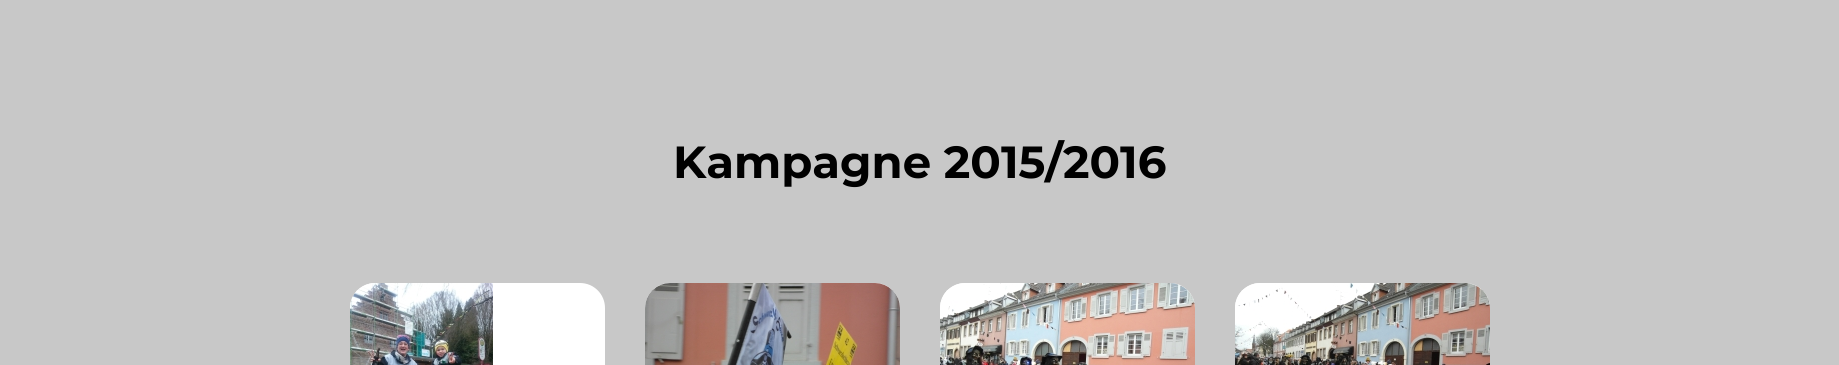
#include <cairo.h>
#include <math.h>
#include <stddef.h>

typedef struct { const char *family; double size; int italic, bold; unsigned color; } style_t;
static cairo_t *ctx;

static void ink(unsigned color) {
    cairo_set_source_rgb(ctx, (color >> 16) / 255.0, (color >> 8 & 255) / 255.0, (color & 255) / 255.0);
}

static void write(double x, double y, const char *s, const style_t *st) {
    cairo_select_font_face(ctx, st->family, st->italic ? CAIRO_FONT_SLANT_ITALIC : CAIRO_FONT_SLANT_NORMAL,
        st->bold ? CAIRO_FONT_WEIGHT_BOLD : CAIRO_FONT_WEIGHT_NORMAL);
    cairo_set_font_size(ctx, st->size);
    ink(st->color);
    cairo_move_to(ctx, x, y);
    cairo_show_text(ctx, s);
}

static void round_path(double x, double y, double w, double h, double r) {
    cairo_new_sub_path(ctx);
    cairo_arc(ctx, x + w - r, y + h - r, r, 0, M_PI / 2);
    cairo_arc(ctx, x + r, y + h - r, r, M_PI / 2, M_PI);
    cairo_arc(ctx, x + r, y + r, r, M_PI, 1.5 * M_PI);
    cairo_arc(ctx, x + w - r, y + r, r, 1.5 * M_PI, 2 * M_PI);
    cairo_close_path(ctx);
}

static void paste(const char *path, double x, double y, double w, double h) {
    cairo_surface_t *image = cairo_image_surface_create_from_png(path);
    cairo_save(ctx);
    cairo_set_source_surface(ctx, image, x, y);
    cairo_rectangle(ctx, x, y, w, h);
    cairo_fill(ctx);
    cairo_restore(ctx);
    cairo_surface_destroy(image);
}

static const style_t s1 = {"Montserrat", 45, 0, 1, 0x000000};

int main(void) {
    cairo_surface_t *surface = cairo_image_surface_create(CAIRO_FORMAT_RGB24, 1839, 365);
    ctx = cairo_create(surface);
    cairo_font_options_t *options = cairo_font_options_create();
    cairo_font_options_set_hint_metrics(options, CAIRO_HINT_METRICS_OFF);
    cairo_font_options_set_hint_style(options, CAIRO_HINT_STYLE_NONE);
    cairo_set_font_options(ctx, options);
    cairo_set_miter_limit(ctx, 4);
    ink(0xc8c8c8);
    cairo_paint(ctx);
    write(673, 178, "Kampagne 2015/2016", &s1);
    ink(0xffffff);
    round_path(350, 283, 255, 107, 25);
    cairo_fill(ctx);
    paste("pic1.png", 350, 283, 143, 82);
    round_path(645, 283, 255, 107, 25);
    cairo_fill(ctx);
    paste("pic2.png", 645, 283, 255, 82);
    round_path(940, 283, 255, 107, 25);
    cairo_fill(ctx);
    paste("pic3.png", 940, 283, 255, 82);
    round_path(1235, 283, 255, 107, 25);
    cairo_fill(ctx);
    paste("pic4.png", 1235, 283, 255, 82);
    cairo_surface_write_to_png(surface, "screenshot.png");
    cairo_font_options_destroy(options);
    cairo_destroy(ctx);
    cairo_surface_destroy(surface);
    return 0;
}
